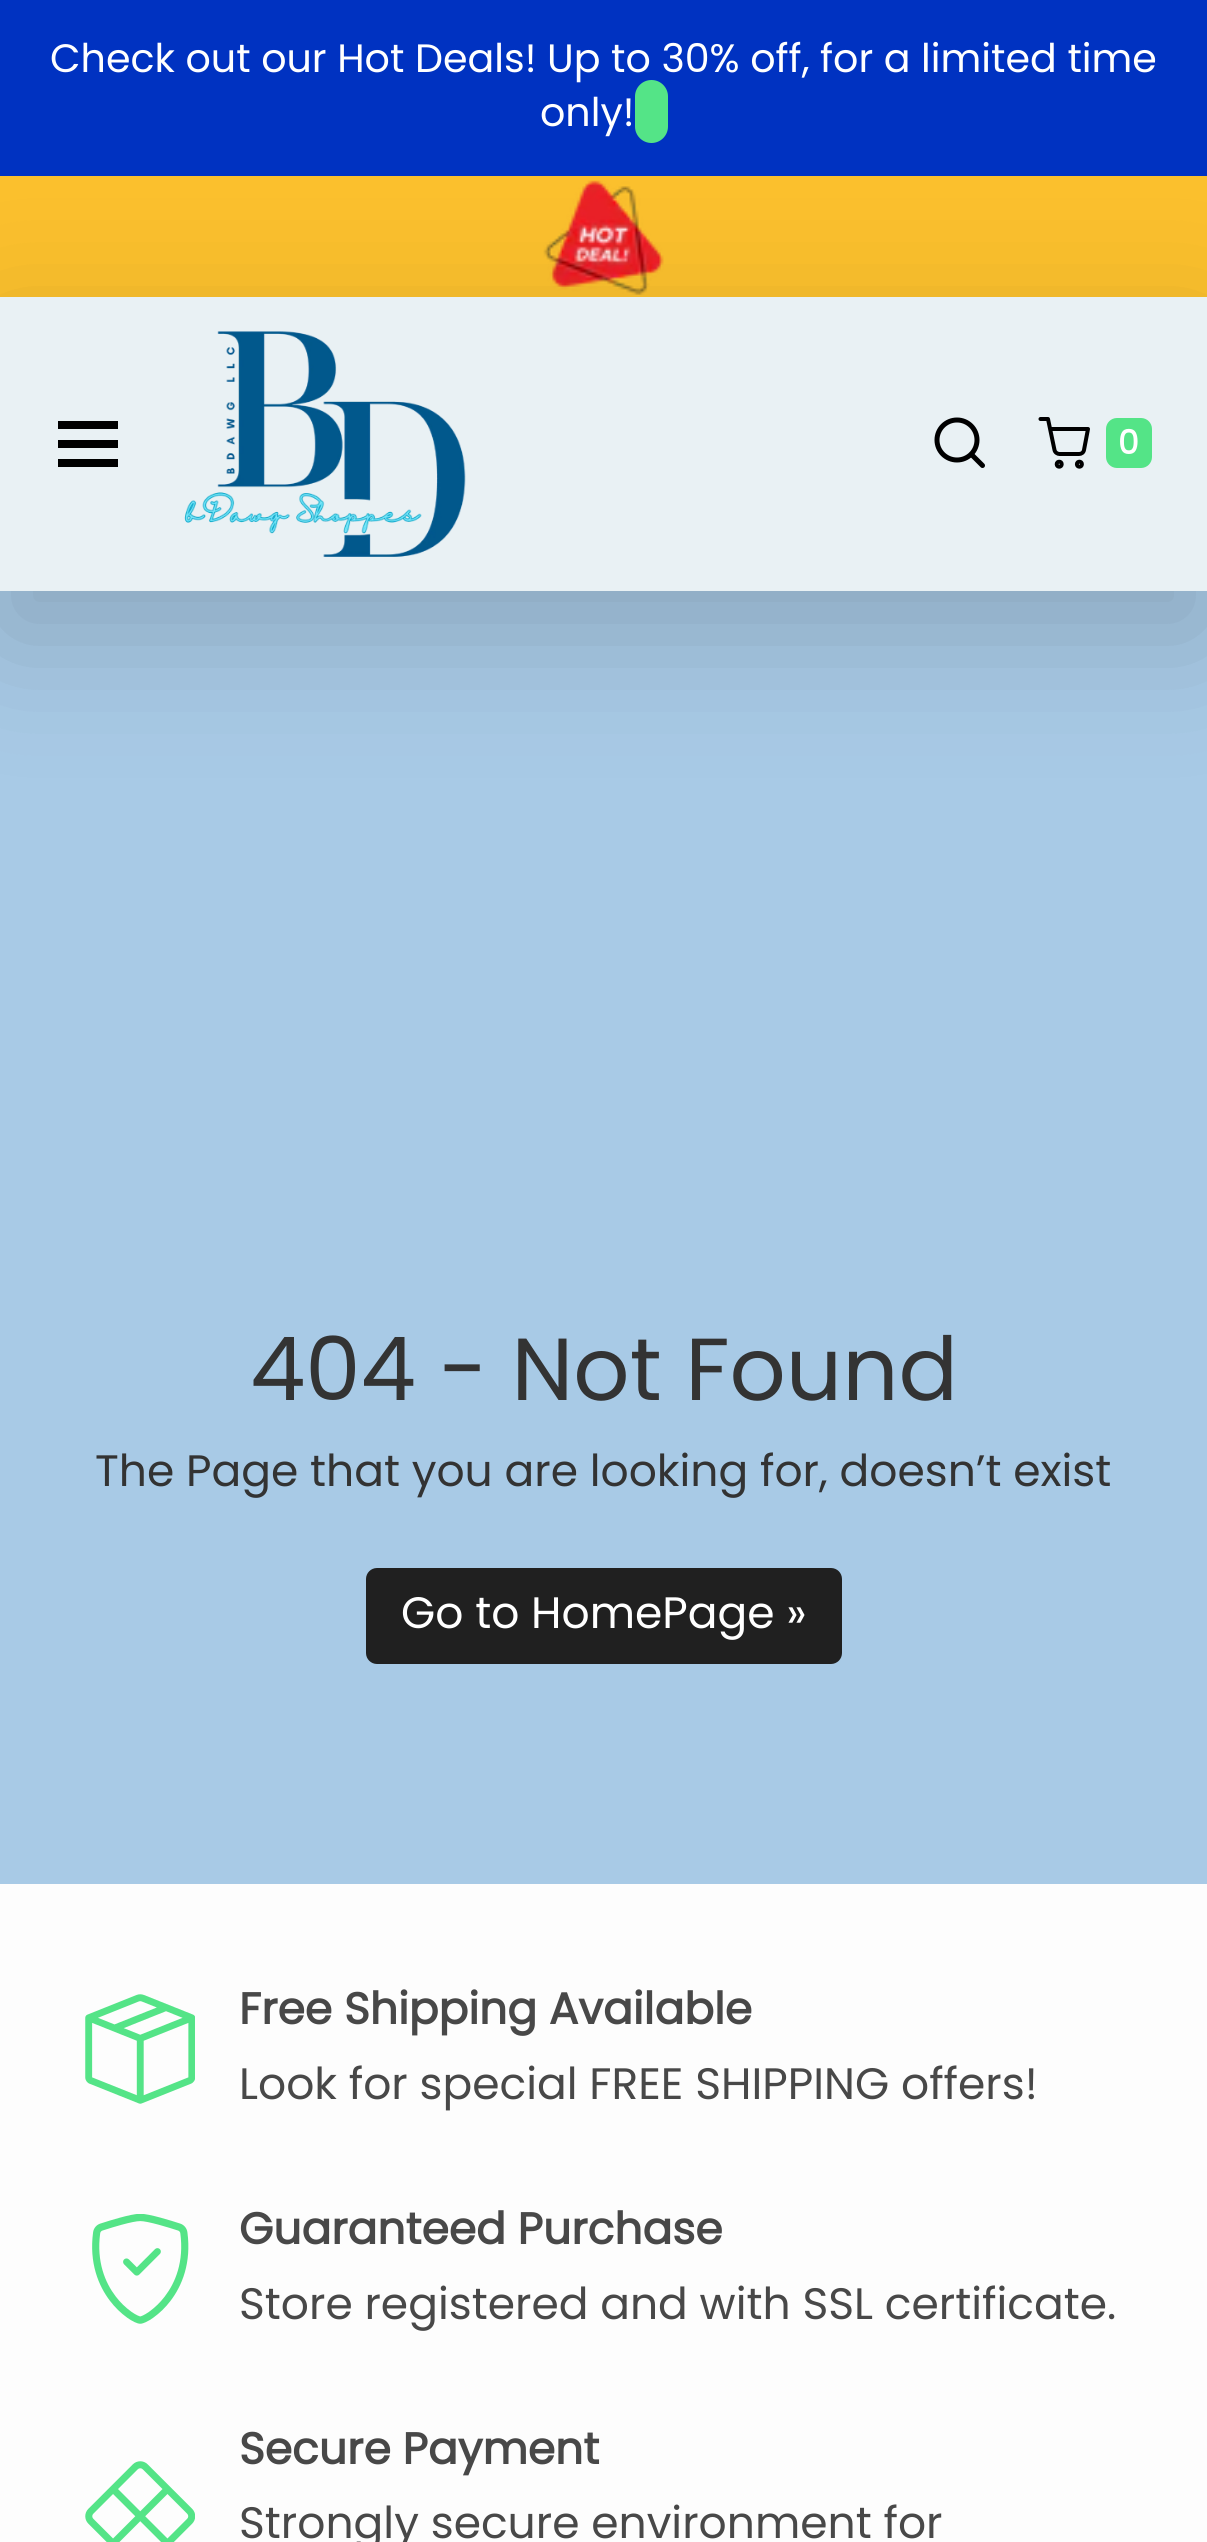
#include <cairo.h>
#include <math.h>
#include <stddef.h>

typedef struct { const char *family; double size; int italic, bold; unsigned color; } style_t;
static cairo_t *ctx;

static void ink(unsigned color) {
    cairo_set_source_rgb(ctx, (color >> 16) / 255.0, (color >> 8 & 255) / 255.0, (color & 255) / 255.0);
}

static void write(double x, double y, const char *s, const style_t *st) {
    cairo_select_font_face(ctx, st->family, st->italic ? CAIRO_FONT_SLANT_ITALIC : CAIRO_FONT_SLANT_NORMAL,
        st->bold ? CAIRO_FONT_WEIGHT_BOLD : CAIRO_FONT_WEIGHT_NORMAL);
    cairo_set_font_size(ctx, st->size);
    ink(st->color);
    cairo_move_to(ctx, x, y);
    cairo_show_text(ctx, s);
}

static void block(double x, double y, double w, double h, unsigned color) {
    ink(color);
    cairo_rectangle(ctx, x, y, w, h);
    cairo_fill(ctx);
}

static void round_path(double x, double y, double w, double h, double r) {
    cairo_new_sub_path(ctx);
    cairo_arc(ctx, x + w - r, y + h - r, r, 0, M_PI / 2);
    cairo_arc(ctx, x + r, y + h - r, r, M_PI / 2, M_PI);
    cairo_arc(ctx, x + r, y + r, r, M_PI, 1.5 * M_PI);
    cairo_arc(ctx, x + w - r, y + r, r, 1.5 * M_PI, 2 * M_PI);
    cairo_close_path(ctx);
}

static void blur_box(double x, double y, double w, double h, double r, double blur, double alpha) {
    cairo_push_group_with_content(ctx, CAIRO_CONTENT_ALPHA);
    cairo_set_operator(ctx, CAIRO_OPERATOR_SOURCE);
    for (int i = 15; i >= -15 && fmin(w, h) + blur * i / 3 > 0; i -= 2) {
        double e = blur * i / 6;
        cairo_set_source_rgba(ctx, 0, 0, 0, alpha * erfc((i - 1) / 8.5) / 2);
        round_path(x - e, y - e, w + 2 * e, h + 2 * e, fmax(0, fmin(r + e + blur * .6, fmin(w, h) / 2 + e)));
        cairo_fill(ctx);
    }
    cairo_pattern_t *soft = cairo_pop_group(ctx);
    cairo_mask(ctx, soft);
    cairo_pattern_destroy(soft);
}

static void paste(const char *path, double x, double y, double w, double h) {
    cairo_surface_t *image = cairo_image_surface_create_from_png(path);
    cairo_save(ctx);
    cairo_set_source_surface(ctx, image, x, y);
    cairo_rectangle(ctx, x, y, w, h);
    cairo_fill(ctx);
    cairo_restore(ctx);
    cairo_surface_destroy(image);
}

static const style_t s1 = {"Poppins", 39.6, 0, 0, 0xffffff};
static const style_t s2 = {"Poppins", 33, 0, 1, 0xffffff};
static const style_t s3 = {"Poppins", 88, 0, 0, 0x333333};
static const style_t s4 = {"Poppins", 44, 0, 0, 0x333333};
static const style_t s5 = {"Poppins", 44, 0, 0, 0xffffff};
static const style_t s6 = {"Poppins", 44, 0, 1, 0x484848};
static const style_t s7 = {"Poppins", 44, 0, 0, 0x484848};

int main(void) {
    cairo_surface_t *surface = cairo_image_surface_create(CAIRO_FORMAT_RGB24, 1207, 2542);
    ctx = cairo_create(surface);
    cairo_font_options_t *options = cairo_font_options_create();
    cairo_font_options_set_hint_metrics(options, CAIRO_HINT_METRICS_OFF);
    cairo_font_options_set_hint_style(options, CAIRO_HINT_STYLE_NONE);
    cairo_set_font_options(ctx, options);
    cairo_set_miter_limit(ctx, 4);
    ink(0xa8cae6);
    cairo_paint(ctx);
    block(0, 0, 1207, 176, 0x0032c1);
    write(50, 72, "Check out our Hot Deals!", &s1);
    write(547, 72, "Up to 30% off, for a limited time", &s1);
    write(540, 126, "only!", &s1);
    ink(0x54e487);
    round_path(635, 80, 33, 63, 16.5);
    cairo_fill(ctx);
    block(0, 176, 1207, 121, 0xfbc02d);
    paste("pic1.png", 543, 180, 121, 115);
    ink(0x000000);
    blur_box(0, 341, 1207, 294, 0, 66, 0.18);
    block(0, 297, 1207, 294, 0xe9f1f4);
    block(58, 421, 60, 8, 0x000000);
    block(58, 440, 60, 8, 0x000000);
    block(58, 459, 60, 8, 0x000000);
    paste("pic2.png", 184, 331, 282, 226);
    cairo_arc(ctx, 957, 440, 20, 0, 2 * M_PI);
    cairo_set_line_width(ctx, 5);
    cairo_stroke(ctx);
    cairo_new_path(ctx);
    cairo_move_to(ctx, 982.5, 465.5);
    cairo_line_to(ctx, 971.5, 454.5);
    cairo_set_line_cap(ctx, CAIRO_LINE_CAP_ROUND);
    cairo_set_line_join(ctx, CAIRO_LINE_JOIN_ROUND);
    cairo_stroke(ctx);
    cairo_arc(ctx, 1059.2, 464.2, 2.5, 0, 2 * M_PI);
    cairo_set_line_width(ctx, 4);
    cairo_set_line_cap(ctx, CAIRO_LINE_CAP_BUTT);
    cairo_set_line_join(ctx, CAIRO_LINE_JOIN_MITER);
    cairo_stroke(ctx);
    cairo_arc(ctx, 1079.4, 464.2, 2.5, 0, 2 * M_PI);
    cairo_stroke(ctx);
    cairo_new_path(ctx);
    cairo_move_to(ctx, 1040.5, 419);
    cairo_line_to(ctx, 1048, 419);
    cairo_line_to(ctx, 1054.5, 450);
    cairo_curve_to(ctx, 1055, 452.5, 1057.5, 454, 1059.5, 454);
    cairo_line_to(ctx, 1079, 454);
    cairo_curve_to(ctx, 1081.5, 454, 1083.5, 452.5, 1084, 450);
    cairo_line_to(ctx, 1088, 429);
    cairo_line_to(ctx, 1052, 429);
    cairo_set_line_cap(ctx, CAIRO_LINE_CAP_ROUND);
    cairo_set_line_join(ctx, CAIRO_LINE_JOIN_ROUND);
    cairo_stroke(ctx);
    ink(0x54e487);
    round_path(1106, 418, 46, 50, 11);
    cairo_fill(ctx);
    write(1118, 454, "0", &s2);
    write(250, 1400, "404 - Not Found", &s3);
    write(95, 1486, "The Page that you are looking for, doesn’t exist", &s4);
    ink(0x202020);
    round_path(367.5, 1569.5, 473, 93, 9.5);
    cairo_fill_preserve(ctx);
    cairo_set_line_width(ctx, 3);
    cairo_set_line_cap(ctx, CAIRO_LINE_CAP_BUTT);
    cairo_set_line_join(ctx, CAIRO_LINE_JOIN_MITER);
    cairo_stroke(ctx);
    write(401, 1628, "Go to HomePage »", &s5);
    block(0, 1884, 1207, 658, 0xfdfdfd);
    paste("pic3.png", 85, 1994, 110, 110);
    write(239, 2024, "Free Shipping Available", &s6);
    write(239, 2099, "Look for special FREE SHIPPING offers!", &s7);
    paste("pic4.png", 92, 2214, 97, 110);
    write(239, 2244, "Guaranteed Purchase", &s6);
    write(239, 2319, "Store registered and with SSL certificate.", &s7);
    paste("pic5.png", 85, 2461, 110, 81);
    write(239, 2464, "Secure Payment", &s6);
    write(239, 2538, "Strongly secure environment for", &s7);
    cairo_surface_write_to_png(surface, "screenshot.png");
    cairo_font_options_destroy(options);
    cairo_destroy(ctx);
    cairo_surface_destroy(surface);
    return 0;
}
